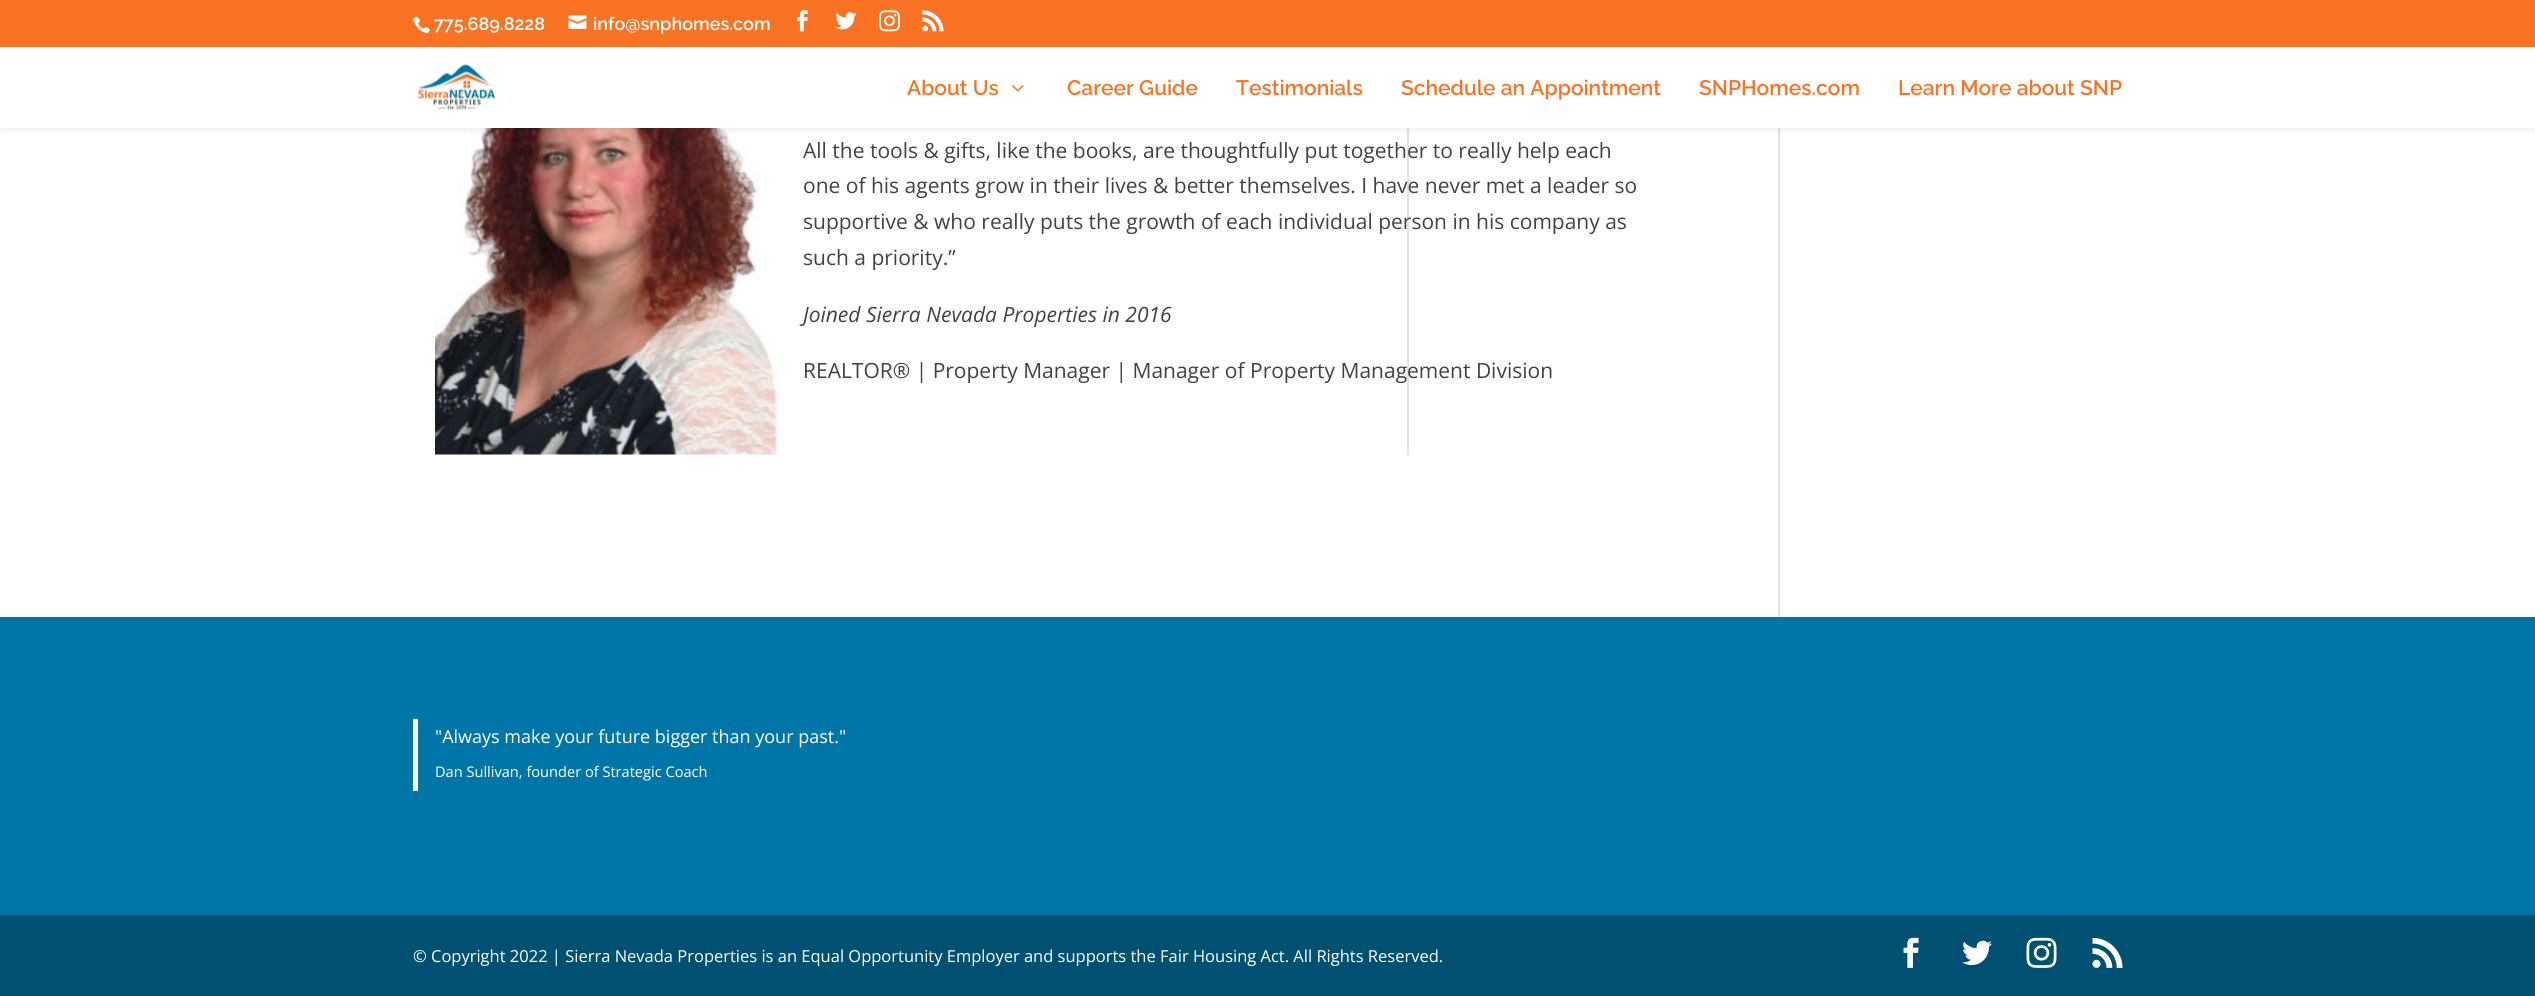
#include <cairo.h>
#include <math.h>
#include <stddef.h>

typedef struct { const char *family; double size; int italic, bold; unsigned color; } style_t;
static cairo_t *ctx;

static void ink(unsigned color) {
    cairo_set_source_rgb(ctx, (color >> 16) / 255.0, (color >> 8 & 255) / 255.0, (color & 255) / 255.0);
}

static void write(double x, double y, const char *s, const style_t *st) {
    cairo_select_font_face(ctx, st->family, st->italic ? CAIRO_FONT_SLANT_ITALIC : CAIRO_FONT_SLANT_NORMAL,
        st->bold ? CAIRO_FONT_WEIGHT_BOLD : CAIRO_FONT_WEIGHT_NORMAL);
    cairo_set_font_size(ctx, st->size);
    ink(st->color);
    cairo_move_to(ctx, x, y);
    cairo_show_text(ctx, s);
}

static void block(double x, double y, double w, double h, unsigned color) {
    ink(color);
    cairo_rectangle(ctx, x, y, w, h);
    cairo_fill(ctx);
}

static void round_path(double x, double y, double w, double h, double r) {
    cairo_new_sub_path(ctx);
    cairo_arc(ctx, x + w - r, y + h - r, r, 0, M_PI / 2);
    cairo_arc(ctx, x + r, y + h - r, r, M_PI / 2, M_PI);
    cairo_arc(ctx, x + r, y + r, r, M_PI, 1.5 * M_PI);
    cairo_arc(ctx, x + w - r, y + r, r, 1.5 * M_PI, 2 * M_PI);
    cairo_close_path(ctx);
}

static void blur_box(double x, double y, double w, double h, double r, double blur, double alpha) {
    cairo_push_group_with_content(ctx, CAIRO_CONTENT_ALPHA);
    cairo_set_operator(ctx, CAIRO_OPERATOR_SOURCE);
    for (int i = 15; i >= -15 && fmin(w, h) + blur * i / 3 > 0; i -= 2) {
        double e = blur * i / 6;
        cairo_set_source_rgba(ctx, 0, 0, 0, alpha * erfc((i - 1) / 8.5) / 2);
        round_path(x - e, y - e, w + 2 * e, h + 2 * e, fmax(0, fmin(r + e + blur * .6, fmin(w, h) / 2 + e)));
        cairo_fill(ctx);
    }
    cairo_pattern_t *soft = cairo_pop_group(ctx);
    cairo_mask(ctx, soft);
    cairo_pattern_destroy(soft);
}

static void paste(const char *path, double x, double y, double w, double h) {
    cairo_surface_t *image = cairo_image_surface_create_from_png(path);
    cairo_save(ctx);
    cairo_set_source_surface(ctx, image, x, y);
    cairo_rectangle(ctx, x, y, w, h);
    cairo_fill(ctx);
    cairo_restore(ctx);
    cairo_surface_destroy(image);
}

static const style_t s1 = {"Raleway SemiBold", 18, 0, 0, 0xffffff};
static const style_t s2 = {"Raleway SemiBold", 21, 0, 0, 0xfa7223};
static const style_t s3 = {"Open Sans", 21, 0, 0, 0x3f4443};
static const style_t s4 = {"Open Sans", 21, 1, 0, 0x3f4443};
static const style_t s5 = {"Open Sans", 18, 0, 0, 0xffffff};
static const style_t s6 = {"Open Sans", 14.6, 0, 0, 0xffffff};
static const style_t s7 = {"Open Sans", 16.5, 0, 0, 0xffffff};

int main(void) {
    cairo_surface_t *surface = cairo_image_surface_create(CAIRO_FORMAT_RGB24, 2535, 996);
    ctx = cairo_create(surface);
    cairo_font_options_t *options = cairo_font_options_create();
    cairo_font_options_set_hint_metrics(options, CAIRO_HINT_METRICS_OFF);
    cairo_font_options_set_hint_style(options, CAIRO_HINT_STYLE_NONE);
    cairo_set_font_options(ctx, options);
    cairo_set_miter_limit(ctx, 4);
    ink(0xffffff);
    cairo_paint(ctx);
    block(1407, 128, 2, 327, 0xe2e2e2);
    paste("pic9.png", 435, 128, 345, 327);
    block(1778, 128, 2, 489, 0xe2e2e2);
    ink(0x000000);
    blur_box(0, 47, 2535, 81, 0, 5, 0.1);
    block(0, 0, 2535, 47, 0xfa7223);
    paste("pic1.png", 413, 16, 17, 18);
    write(434, 30, "775.689.8228", &s1);
    paste("pic2.png", 568, 15, 19, 14);
    write(593, 30, "info@snphomes.com", &s1);
    paste("pic3.png", 797, 10, 11, 22);
    paste("pic4.png", 835, 12, 22, 18);
    paste("pic5.png", 879, 10, 21, 22);
    paste("pic6.png", 922, 10, 22, 22);
    block(0, 47, 2535, 81, 0xffffff);
    paste("pic7.png", 418, 64, 77, 46);
    write(907, 95, "About Us", &s2);
    paste("pic8.png", 1012, 85, 12, 7);
    write(1067, 95, "Career Guide", &s2);
    write(1236, 95, "Testimonials", &s2);
    write(1401, 95, "Schedule an Appointment", &s2);
    write(1699, 95, "SNPHomes.com", &s2);
    write(1898, 95, "Learn More about SNP", &s2);
    write(803, 158, "All the tools & gifts, like the books, are thoughtfully put together to really help each", &s3);
    write(803, 193, "one of his agents grow in their lives & better themselves. I have never met a leader so", &s3);
    write(803, 229, "supportive & who really puts the growth of each individual person in his company as", &s3);
    write(803, 265, "such a priority.”", &s3);
    write(803, 322, "Joined Sierra Nevada Properties in 2016", &s4);
    write(803, 378, "REALTOR® | Property Manager | Manager of Property Management Division", &s3);
    block(0, 617, 2535, 298, 0x0076a8);
    block(413, 719, 5, 72, 0xffffff);
    write(435, 743, "\"Always make your future bigger than your past.\"", &s5);
    write(435, 777, "Dan Sullivan, founder of Strategic Coach", &s6);
    block(0, 915, 2535, 81, 0x005072);
    write(413, 962, "© Copyright 2022 | Sierra Nevada Properties is an Equal Opportunity Employer and supports the Fair Housing Act. All Rights Reserved.", &s7);
    paste("pic10.png", 1903, 937, 16, 31);
    paste("pic11.png", 1962, 940, 30, 26);
    paste("pic12.png", 2026, 937, 31, 31);
    paste("pic13.png", 2092, 937, 31, 31);
    cairo_surface_write_to_png(surface, "screenshot.png");
    cairo_font_options_destroy(options);
    cairo_destroy(ctx);
    cairo_surface_destroy(surface);
    return 0;
}
